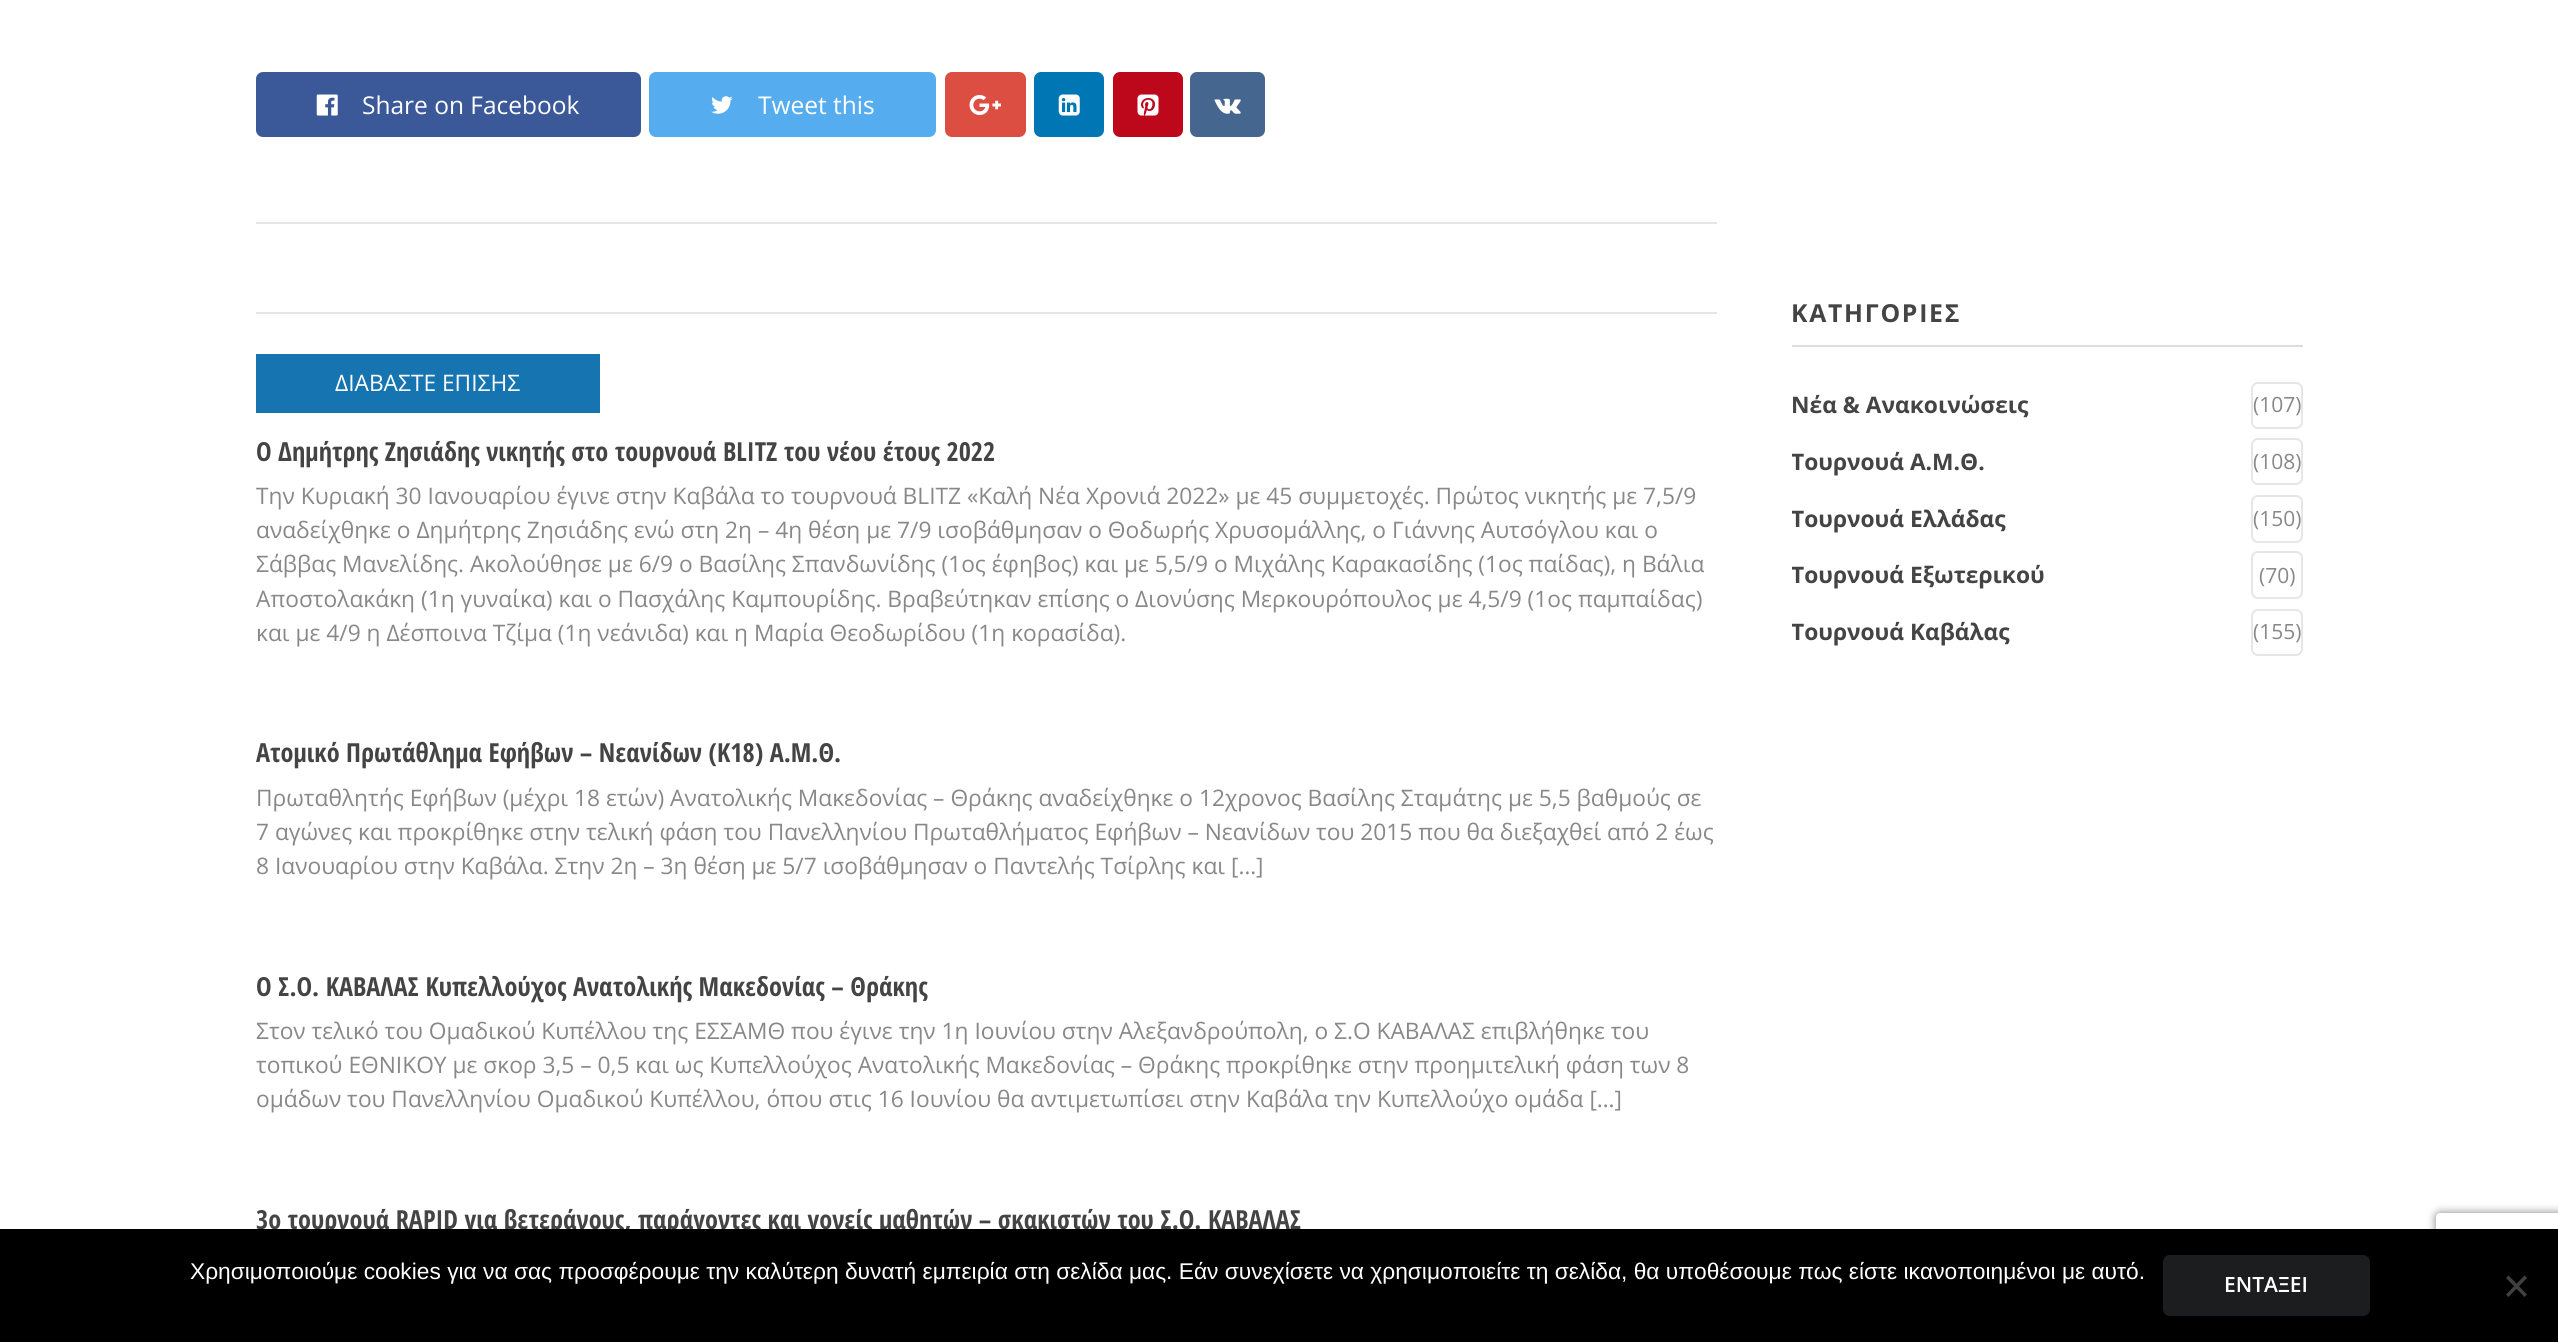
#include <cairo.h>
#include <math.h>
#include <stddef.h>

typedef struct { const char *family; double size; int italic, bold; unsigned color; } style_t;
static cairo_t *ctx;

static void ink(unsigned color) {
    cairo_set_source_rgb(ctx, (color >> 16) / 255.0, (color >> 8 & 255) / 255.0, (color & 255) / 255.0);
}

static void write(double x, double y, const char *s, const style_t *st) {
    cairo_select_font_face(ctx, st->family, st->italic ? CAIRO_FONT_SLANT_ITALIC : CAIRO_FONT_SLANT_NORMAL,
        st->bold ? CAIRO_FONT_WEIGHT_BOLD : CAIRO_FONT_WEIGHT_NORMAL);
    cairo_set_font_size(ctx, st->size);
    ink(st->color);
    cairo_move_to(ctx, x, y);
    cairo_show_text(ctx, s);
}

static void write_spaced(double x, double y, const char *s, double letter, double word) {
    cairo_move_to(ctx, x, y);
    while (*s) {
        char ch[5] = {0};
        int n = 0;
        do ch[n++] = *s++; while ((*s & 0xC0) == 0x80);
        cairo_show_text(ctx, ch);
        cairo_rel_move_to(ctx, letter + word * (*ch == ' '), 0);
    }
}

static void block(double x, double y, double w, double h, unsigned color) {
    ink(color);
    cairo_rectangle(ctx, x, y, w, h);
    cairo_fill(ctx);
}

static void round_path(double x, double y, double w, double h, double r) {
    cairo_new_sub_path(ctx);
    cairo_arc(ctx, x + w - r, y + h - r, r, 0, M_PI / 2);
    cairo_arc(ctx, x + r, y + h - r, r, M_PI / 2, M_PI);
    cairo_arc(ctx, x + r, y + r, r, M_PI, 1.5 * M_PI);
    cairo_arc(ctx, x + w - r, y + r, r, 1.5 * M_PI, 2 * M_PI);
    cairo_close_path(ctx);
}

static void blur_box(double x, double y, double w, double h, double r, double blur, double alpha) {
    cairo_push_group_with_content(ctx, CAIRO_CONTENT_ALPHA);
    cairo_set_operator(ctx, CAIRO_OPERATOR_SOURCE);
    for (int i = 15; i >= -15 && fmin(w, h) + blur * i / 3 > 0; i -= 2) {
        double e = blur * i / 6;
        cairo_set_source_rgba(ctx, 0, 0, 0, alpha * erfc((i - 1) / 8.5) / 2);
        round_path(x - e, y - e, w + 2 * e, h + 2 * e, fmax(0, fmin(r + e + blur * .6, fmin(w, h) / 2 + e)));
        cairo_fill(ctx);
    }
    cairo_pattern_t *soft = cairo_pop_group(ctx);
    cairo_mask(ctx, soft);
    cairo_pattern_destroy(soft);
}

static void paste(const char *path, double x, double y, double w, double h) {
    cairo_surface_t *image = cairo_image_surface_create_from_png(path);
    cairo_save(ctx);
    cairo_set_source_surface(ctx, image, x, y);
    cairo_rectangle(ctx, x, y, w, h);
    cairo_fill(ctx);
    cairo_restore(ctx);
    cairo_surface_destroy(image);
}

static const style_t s1 = {"Open Sans", 24.5, 0, 0, 0xffffff};
static const style_t s2 = {"Open Sans", 22.75, 0, 0, 0xffffff};
static const style_t s3 = {"Open Sans Condensed", 26.25, 0, 1, 0x444444};
static const style_t s4 = {"Open Sans", 22.75, 0, 0, 0x888888};
static const style_t s5 = {"Open Sans", 22.75, 0, 1, 0x444444};
static const style_t s6 = {"Open Sans", 21, 0, 0, 0x888888};
static const style_t s7 = {"Liberation Sans", 22.75, 0, 0, 0xffffff};
static const style_t s8 = {"Open Sans SemiBold", 21, 0, 0, 0xffffff};

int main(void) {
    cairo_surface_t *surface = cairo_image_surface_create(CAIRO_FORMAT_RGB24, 2558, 1342);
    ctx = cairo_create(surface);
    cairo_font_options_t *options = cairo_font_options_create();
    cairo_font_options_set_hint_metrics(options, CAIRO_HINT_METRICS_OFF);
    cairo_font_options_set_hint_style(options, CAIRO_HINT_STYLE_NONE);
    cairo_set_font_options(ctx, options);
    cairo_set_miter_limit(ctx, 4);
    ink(0xffffff);
    cairo_paint(ctx);
    block(256, 222, 1461, 2, 0xe6e6e6);
    ink(0x3b5998);
    round_path(256, 72, 385, 65, 7);
    cairo_fill(ctx);
    paste("pic1.png", 316, 94, 22, 22);
    write(362, 114, "Share on Facebook", &s1);
    ink(0x55acee);
    round_path(649, 72, 287, 65, 7);
    cairo_fill(ctx);
    paste("pic2.png", 711, 96, 22, 18);
    write(758, 114, "Tweet this", &s1);
    ink(0xdc4e41);
    round_path(945, 72, 81, 65, 7);
    cairo_fill(ctx);
    paste("pic3.png", 969, 95, 32, 20);
    ink(0x0077b5);
    round_path(1034, 72, 70, 65, 7);
    cairo_fill(ctx);
    paste("pic4.png", 1058, 94, 22, 22);
    ink(0xbd081c);
    round_path(1113, 72, 70, 65, 7);
    cairo_fill(ctx);
    paste("pic5.png", 1137, 94, 22, 22);
    ink(0x45668e);
    round_path(1190, 72, 75, 65, 7);
    cairo_fill(ctx);
    paste("pic6.png", 1214, 98, 27, 16);
    block(256, 312, 1461, 2, 0xe6e6e6);
    block(256, 354, 344, 59, 0x1674b1);
    write(335, 391, "ΔΙΑΒΑΣΤΕ ΕΠΙΣΗΣ", &s2);
    write(256, 461, "Ο Δημήτρης Ζησιάδης νικητής στο τουρνουά BLITZ του νέου έτους 2022", &s3);
    write(256, 504, "Την Κυριακή 30 Ιανουαρίου έγινε στην Καβάλα το τουρνουά BLITZ «Καλή Νέα Χρονιά 2022» με 45 συμμετοχές. Πρώτος νικητής με 7,5/9", &s4);
    write(256, 538, "αναδείχθηκε ο Δημήτρης Ζησιάδης ενώ στη 2η – 4η θέση με 7/9 ισοβάθμησαν ο Θοδωρής Χρυσομάλλης, ο Γιάννης Αυτσόγλου και ο", &s4);
    write(256, 572, "Σάββας Μανελίδης. Ακολούθησε με 6/9 ο Βασίλης Σπανδωνίδης (1ος έφηβος) και με 5,5/9 ο Μιχάλης Καρακασίδης (1ος παίδας), η Βάλια", &s4);
    write(256, 607, "Αποστολακάκη (1η γυναίκα) και ο Πασχάλης Καμπουρίδης. Βραβεύτηκαν επίσης ο Διονύσης Μερκουρόπουλος με 4,5/9 (1ος παμπαίδας)", &s4);
    write(256, 641, "και με 4/9 η Δέσποινα Τζίμα (1η νεάνιδα) και η Μαρία Θεοδωρίδου (1η κορασίδα).", &s4);
    write(256, 762, "Ατομικό Πρωτάθλημα Εφήβων – Νεανίδων (K18) Α.Μ.Θ.", &s3);
    write(256, 806, "Πρωταθλητής Εφήβων (μέχρι 18 ετών) Ανατολικής Μακεδονίας – Θράκης αναδείχθηκε ο 12χρονος Βασίλης Σταμάτης με 5,5 βαθμούς σε", &s4);
    write(256, 840, "7 αγώνες και προκρίθηκε στην τελική φάση του Πανελληνίου Πρωταθλήματος Εφήβων – Νεανίδων του 2015 που θα διεξαχθεί από 2 έως", &s4);
    write(256, 874, "8 Ιανουαρίου στην Καβάλα. Στην 2η – 3η θέση με 5/7 ισοβάθμησαν ο Παντελής Τσίρλης και […]", &s4);
    write(256, 996, "Ο Σ.Ο. ΚΑΒΑΛΑΣ Κυπελλούχος Ανατολικής Μακεδονίας – Θράκης", &s3);
    write(256, 1039, "Στον τελικό του Ομαδικού Κυπέλλου της ΕΣΣΑΜΘ που έγινε την 1η Ιουνίου στην Αλεξανδρούπολη, ο Σ.Ο ΚΑΒΑΛΑΣ επιβλήθηκε του", &s4);
    write(256, 1073, "τοπικού ΕΘΝΙΚΟΥ με σκορ 3,5 – 0,5 και ως Κυπελλούχος Ανατολικής Μακεδονίας – Θράκης προκρίθηκε στην προημιτελική φάση των 8", &s4);
    write(256, 1107, "ομάδων του Πανελληνίου Ομαδικού Κυπέλλου, όπου στις 16 Ιουνίου θα αντιμετωπίσει στην Καβάλα την Κυπελλούχο ομάδα […]", &s4);
    write(256, 1229, "3ο τουρνουά RAPID για βετεράνους, παράγοντες και γονείς μαθητών – σκακιστών του Σ.Ο. ΚΑΒΑΛΑΣ", &s3);
    block(1792, 345, 511, 2, 0xdddddd);
    cairo_select_font_face(ctx, "Open Sans", CAIRO_FONT_SLANT_NORMAL, CAIRO_FONT_WEIGHT_BOLD);
    cairo_set_font_size(ctx, 24.75);
    ink(0x444444);
    write_spaced(1791, 322, "KΑΤΗΓΟΡΙΕΣ", 1.75, 0);
    write(1791, 413, "Νέα & Ανακοινώσεις", &s5);
    round_path(2252, 383, 50, 45, 6);
    ink(0xe6e6e6);
    cairo_stroke(ctx);
    write(2253, 412, "(107)", &s6);
    cairo_save(ctx);
    cairo_rectangle(ctx, 1792, 434, 511, 56);
    cairo_clip(ctx);
    write(1791, 470, "Τουρνουά Α.Μ.Θ.", &s5);
    cairo_restore(ctx);
    round_path(2252, 439, 50, 45, 6);
    ink(0xe6e6e6);
    cairo_stroke(ctx);
    write(2253, 469, "(108)", &s6);
    cairo_save(ctx);
    cairo_rectangle(ctx, 1792, 490, 511, 58);
    cairo_clip(ctx);
    write(1791, 527, "Τουρνουά Ελλάδας", &s5);
    cairo_restore(ctx);
    round_path(2252, 496, 50, 46, 6);
    ink(0xe6e6e6);
    cairo_stroke(ctx);
    write(2253, 526, "(150)", &s6);
    cairo_save(ctx);
    cairo_rectangle(ctx, 1792, 548, 511, 56);
    cairo_clip(ctx);
    write(1791, 583, "Τουρνουά Εξωτερικού", &s5);
    cairo_restore(ctx);
    round_path(2252, 552, 50, 46, 6);
    ink(0xe6e6e6);
    cairo_stroke(ctx);
    write(2259, 583, "(70)", &s6);
    cairo_save(ctx);
    cairo_rectangle(ctx, 1792, 604, 511, 58);
    cairo_clip(ctx);
    write(1791, 640, "Τουρνουά Καβάλας", &s5);
    cairo_restore(ctx);
    round_path(2252, 610, 50, 45, 6);
    ink(0xe6e6e6);
    cairo_stroke(ctx);
    write(2253, 639, "(155)", &s6);
    cairo_save(ctx);
    cairo_set_fill_rule(ctx, CAIRO_FILL_RULE_EVEN_ODD);
    cairo_new_path(ctx);
    cairo_move_to(ctx, 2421, 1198);
    cairo_line_to(ctx, 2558, 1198);
    cairo_line_to(ctx, 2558, 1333);
    cairo_line_to(ctx, 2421, 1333);
    cairo_close_path(ctx);
    cairo_move_to(ctx, 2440, 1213);
    cairo_line_to(ctx, 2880, 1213);
    cairo_curve_to(ctx, 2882, 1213, 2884, 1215, 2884, 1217);
    cairo_line_to(ctx, 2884, 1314);
    cairo_curve_to(ctx, 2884, 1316, 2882, 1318, 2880, 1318);
    cairo_line_to(ctx, 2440, 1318);
    cairo_curve_to(ctx, 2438, 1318, 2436, 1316, 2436, 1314);
    cairo_line_to(ctx, 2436, 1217);
    cairo_curve_to(ctx, 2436, 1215, 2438, 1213, 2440, 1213);
    cairo_close_path(ctx);
    cairo_clip(ctx);
    ink(0x808080);
    blur_box(2436, 1213, 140, 105, 4, 4.5, 1);
    cairo_restore(ctx);
    block(0, 1229, 2558, 113, 0x000000);
    write(190, 1279, "Χρησιμοποιούμε cookies για να σας προσφέρουμε την καλύτερη δυνατή εμπειρία στη σελίδα μας. Εάν συνεχίσετε να χρησιμοποιείτε τη σελίδα, θα υποθέσουμε πως είστε ικανοποιημένοι με αυτό.", &s7);
    ink(0x1b1d1f);
    round_path(2163, 1255, 207, 61, 7);
    cairo_fill(ctx);
    write(2224, 1292, "ΕΝΤΑΞΕΙ", &s8);
    ink(0x404040);
    cairo_new_path(ctx);
    cairo_move_to(ctx, 2524.5, 1275.5);
    cairo_line_to(ctx, 2527, 1278);
    cairo_line_to(ctx, 2508.5, 1297);
    cairo_line_to(ctx, 2506, 1294.5);
    cairo_close_path(ctx);
    cairo_fill(ctx);
    cairo_new_path(ctx);
    cairo_move_to(ctx, 2506, 1278);
    cairo_line_to(ctx, 2508.5, 1275.5);
    cairo_line_to(ctx, 2527, 1294.5);
    cairo_line_to(ctx, 2524.5, 1297);
    cairo_close_path(ctx);
    cairo_fill(ctx);
    cairo_surface_write_to_png(surface, "screenshot.png");
    cairo_font_options_destroy(options);
    cairo_destroy(ctx);
    cairo_surface_destroy(surface);
    return 0;
}
